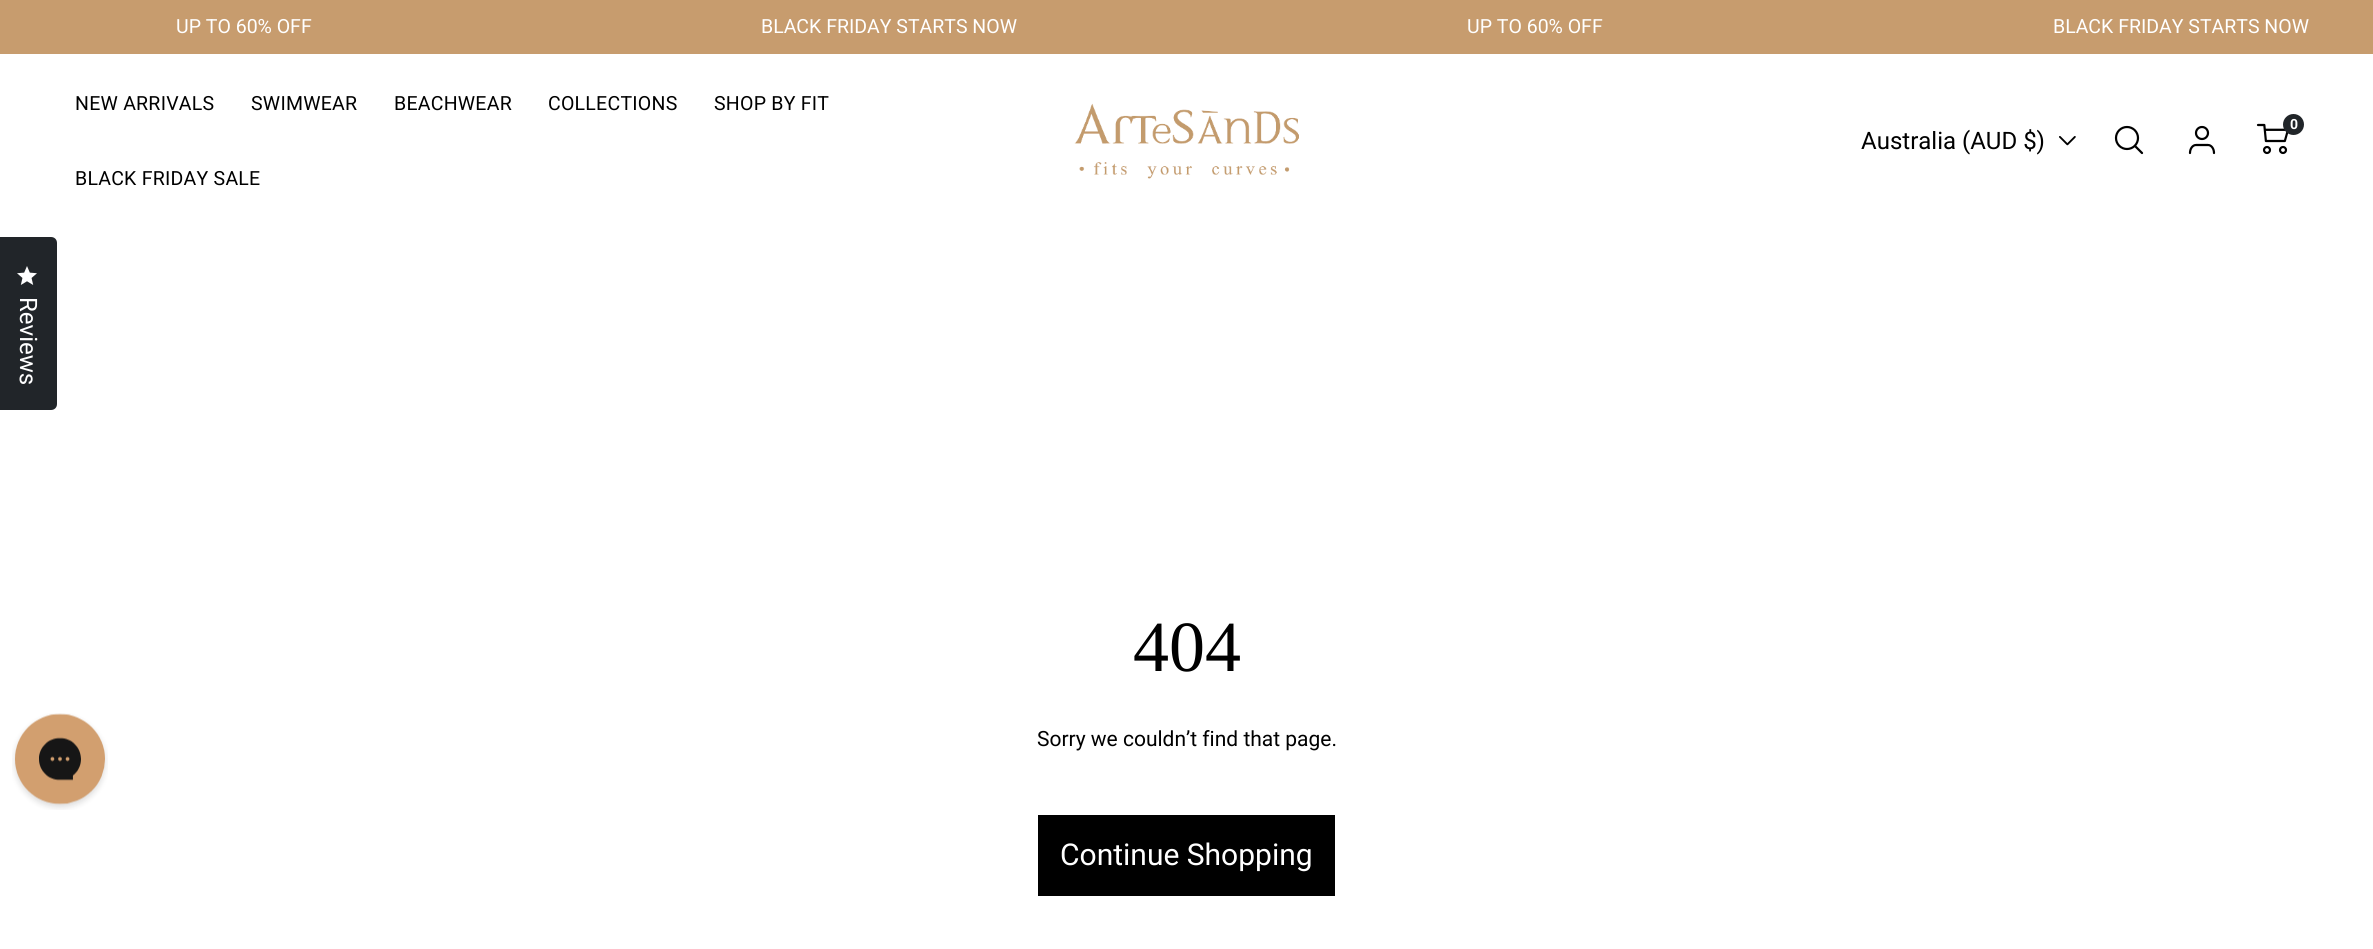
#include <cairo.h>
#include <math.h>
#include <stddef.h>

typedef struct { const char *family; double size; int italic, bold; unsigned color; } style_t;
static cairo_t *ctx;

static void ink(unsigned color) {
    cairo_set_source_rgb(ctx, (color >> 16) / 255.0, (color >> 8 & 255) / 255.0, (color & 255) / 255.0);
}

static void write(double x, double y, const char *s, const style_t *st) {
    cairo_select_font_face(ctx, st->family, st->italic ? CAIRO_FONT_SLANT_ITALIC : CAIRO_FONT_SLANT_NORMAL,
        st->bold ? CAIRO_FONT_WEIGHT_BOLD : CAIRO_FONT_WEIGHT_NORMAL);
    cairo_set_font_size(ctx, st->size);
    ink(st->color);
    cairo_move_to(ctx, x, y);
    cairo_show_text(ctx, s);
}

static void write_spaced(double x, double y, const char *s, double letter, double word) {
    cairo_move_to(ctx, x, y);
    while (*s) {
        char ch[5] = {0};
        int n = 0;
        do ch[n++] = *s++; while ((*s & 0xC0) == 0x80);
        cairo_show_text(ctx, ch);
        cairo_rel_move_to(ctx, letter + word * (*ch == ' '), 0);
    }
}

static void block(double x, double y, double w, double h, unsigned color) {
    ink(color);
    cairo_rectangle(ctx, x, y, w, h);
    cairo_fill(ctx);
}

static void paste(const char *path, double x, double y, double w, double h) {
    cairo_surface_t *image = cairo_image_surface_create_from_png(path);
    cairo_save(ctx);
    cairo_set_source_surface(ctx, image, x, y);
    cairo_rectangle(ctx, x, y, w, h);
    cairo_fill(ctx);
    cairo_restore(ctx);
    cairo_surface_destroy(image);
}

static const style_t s1 = {"Roboto", 19.5, 0, 0, 0xffffff};
static const style_t s2 = {"Roboto", 14, 0, 1, 0xffffff};
static const style_t s3 = {"Roboto", 24, 0, 0, 0x000000};
static const style_t s4 = {"Roboto", 24, 0, 0, 0xffffff};
static const style_t s5 = {"Liberation Serif", 72, 0, 0, 0x000000};
static const style_t s6 = {"Roboto", 21, 0, 0, 0x000000};
static const style_t s7 = {"Roboto", 30, 0, 0, 0xffffff};

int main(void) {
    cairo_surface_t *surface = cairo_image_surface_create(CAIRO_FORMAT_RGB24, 2373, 949);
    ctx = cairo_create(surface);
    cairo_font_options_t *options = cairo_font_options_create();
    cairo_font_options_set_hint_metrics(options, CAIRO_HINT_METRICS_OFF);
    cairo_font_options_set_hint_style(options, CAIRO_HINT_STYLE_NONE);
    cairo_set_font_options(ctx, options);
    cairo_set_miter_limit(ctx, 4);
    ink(0xffffff);
    cairo_paint(ctx);
    block(0, 0, 2373, 54, 0xc79c6e);
    write(176, 33, "UP TO 60% OFF", &s1);
    write(761, 33, "BLACK FRIDAY STARTS NOW", &s1);
    write(1467, 33, "UP TO 60% OFF", &s1);
    write(2053, 33, "BLACK FRIDAY STARTS NOW", &s1);
    ink(0x000000);
    write_spaced(75, 110, "NEW ARRIVALS", 0.25, 0);
    write_spaced(251, 110, "SWIMWEAR", 0.25, 0);
    write_spaced(394, 110, "BEACHWEAR", 0.25, 0);
    write_spaced(548, 110, "COLLECTIONS", 0.25, 0);
    write_spaced(714, 110, "SHOP BY FIT", 0.25, 0);
    write_spaced(75, 185, "BLACK FRIDAY SALE", 0.25, 0);
    paste("pic1.png", 1074, 103, 225, 76);
    paste("pic2.png", 2114, 125, 30, 30);
    paste("pic3.png", 2188, 125, 28, 30);
    paste("pic4.png", 2256, 123, 33, 32);
    ink(0x212529);
    cairo_arc(ctx, 2293.5, 124.5, 10.5, 0, 2 * M_PI);
    cairo_fill(ctx);
    write(2290, 129, "0", &s2);
    write(1861, 149, "Australia (AUD $)", &s3);
    paste("pic5.png", 2059, 136, 17, 10);
    ink(0x212529);
    cairo_new_path(ctx);
    cairo_move_to(ctx, -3, 237);
    cairo_line_to(ctx, 51, 237);
    cairo_curve_to(ctx, 54.5, 237, 57, 239.5, 57, 243);
    cairo_line_to(ctx, 57, 404);
    cairo_curve_to(ctx, 57, 407.5, 54.5, 410, 51, 410);
    cairo_line_to(ctx, -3, 410);
    cairo_close_path(ctx);
    cairo_fill(ctx);
    paste("pic6.png", 17, 266, 20, 19);
    cairo_save(ctx);
    cairo_translate(ctx, 20, 297);
    cairo_rotate(ctx, 90.1 * M_PI / 180);
    write(0, 0, "Reviews", &s4);
    cairo_restore(ctx);
    paste("pic7.png", 12, 713, 96, 97);
    write(1133, 671, "404", &s5);
    write(1037, 746, "Sorry we couldn’t find that page.", &s6);
    block(1038, 815, 297, 81, 0x000000);
    write(1060, 865, "Continue Shopping", &s7);
    cairo_surface_write_to_png(surface, "screenshot.png");
    cairo_font_options_destroy(options);
    cairo_destroy(ctx);
    cairo_surface_destroy(surface);
    return 0;
}
